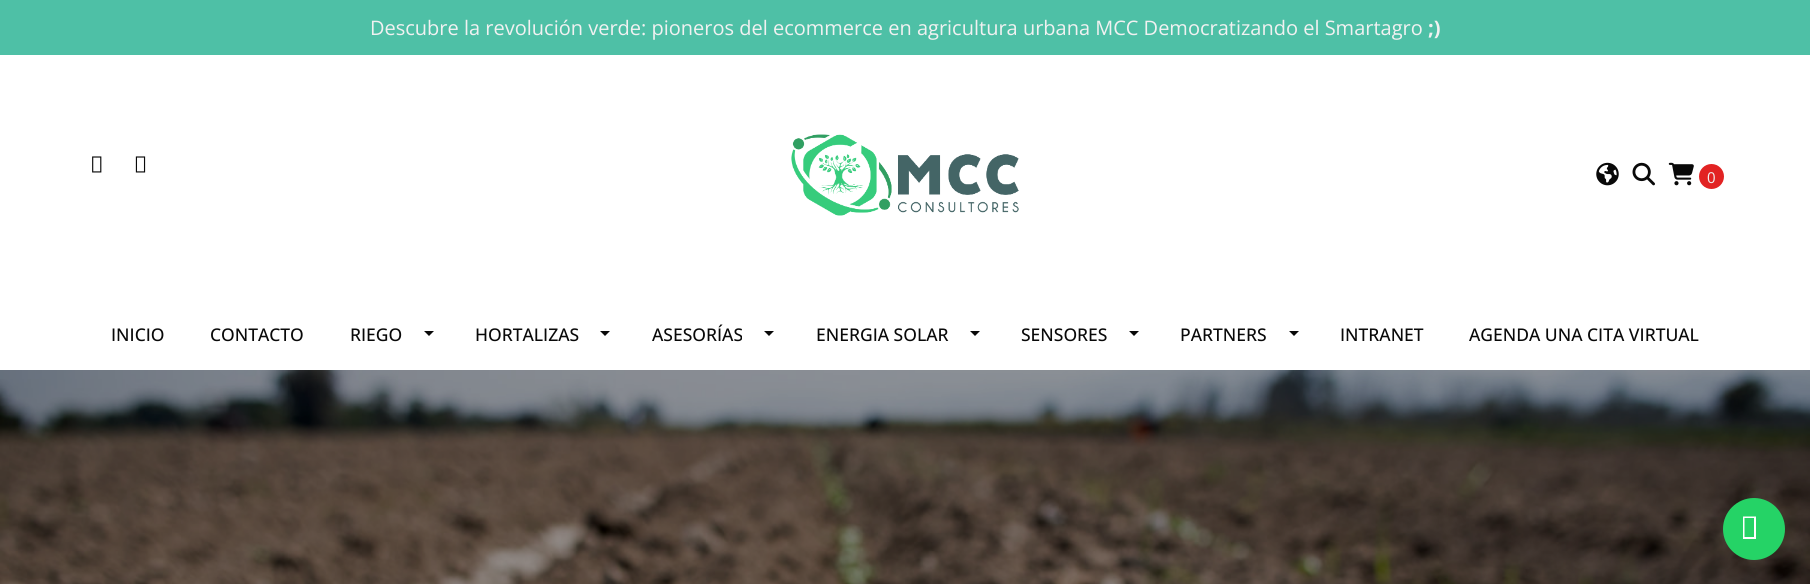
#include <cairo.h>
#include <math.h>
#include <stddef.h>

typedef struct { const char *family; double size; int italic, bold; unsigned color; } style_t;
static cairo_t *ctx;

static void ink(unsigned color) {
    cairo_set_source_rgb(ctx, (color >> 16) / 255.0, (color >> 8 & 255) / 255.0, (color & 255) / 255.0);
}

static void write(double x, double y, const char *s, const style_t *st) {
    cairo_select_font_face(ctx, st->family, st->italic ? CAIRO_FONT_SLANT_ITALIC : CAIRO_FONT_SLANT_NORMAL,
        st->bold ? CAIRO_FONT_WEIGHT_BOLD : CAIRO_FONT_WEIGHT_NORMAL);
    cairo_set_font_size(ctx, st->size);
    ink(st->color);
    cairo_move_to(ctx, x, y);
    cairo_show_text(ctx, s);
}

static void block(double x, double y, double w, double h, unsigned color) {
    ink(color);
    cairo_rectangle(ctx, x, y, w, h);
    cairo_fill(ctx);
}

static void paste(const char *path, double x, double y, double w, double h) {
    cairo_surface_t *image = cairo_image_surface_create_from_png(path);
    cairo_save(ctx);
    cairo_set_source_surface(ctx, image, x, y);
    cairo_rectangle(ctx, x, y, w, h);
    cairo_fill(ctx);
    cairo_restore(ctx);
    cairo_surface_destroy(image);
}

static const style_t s1 = {"Open Sans", 20, 0, 0, 0xf1f1f1};
static const style_t s2 = {"Open Sans", 20, 0, 1, 0xf1f1f1};
static const style_t s3 = {"Open Sans", 15, 0, 0, 0xf1f1f1};
static const style_t s4 = {"Open Sans Medium", 17.5, 0, 0, 0x090909};

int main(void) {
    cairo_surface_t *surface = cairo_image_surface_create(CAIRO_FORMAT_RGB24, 1810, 584);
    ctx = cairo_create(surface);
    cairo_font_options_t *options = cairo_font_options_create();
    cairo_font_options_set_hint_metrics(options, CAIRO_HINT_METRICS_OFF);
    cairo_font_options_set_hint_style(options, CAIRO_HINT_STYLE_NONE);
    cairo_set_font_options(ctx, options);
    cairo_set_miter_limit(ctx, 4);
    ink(0xffffff);
    cairo_paint(ctx);
    block(0, 0, 1810, 55, 0x4ec0a6);
    write(370, 35, "Descubre la revolución verde: pioneros del ecommerce en agricultura urbana MCC Democratizando el Smartagro", &s1);
    write(1428, 35, ";)", &s2);
    paste("pic1.png", 92, 156, 10, 17);
    paste("pic2.png", 135, 156, 11, 17);
    paste("pic3.png", 791, 134, 228, 82);
    paste("pic4.png", 1596, 162, 23, 24);
    paste("pic5.png", 1632, 162, 23, 24);
    paste("pic6.png", 1668, 162, 26, 24);
    ink(0xe22323);
    cairo_arc(ctx, 1711.5, 176.5, 12.5, 0, 2 * M_PI);
    cairo_fill(ctx);
    write(1707, 183, "0", &s3);
    write(111, 341, "INICIO", &s4);
    write(210, 341, "CONTACTO", &s4);
    write(350, 341, "RIEGO", &s4);
    cairo_new_path(ctx);
    cairo_move_to(ctx, 424, 331);
    cairo_line_to(ctx, 434, 331);
    cairo_line_to(ctx, 429, 336);
    cairo_close_path(ctx);
    cairo_fill(ctx);
    write(475, 341, "HORTALIZAS", &s4);
    cairo_new_path(ctx);
    cairo_move_to(ctx, 600, 331);
    cairo_line_to(ctx, 610, 331);
    cairo_line_to(ctx, 605, 336);
    cairo_close_path(ctx);
    cairo_fill(ctx);
    write(652, 341, "ASESORÍAS", &s4);
    cairo_new_path(ctx);
    cairo_move_to(ctx, 764, 331);
    cairo_line_to(ctx, 774, 331);
    cairo_line_to(ctx, 769, 336);
    cairo_close_path(ctx);
    cairo_fill(ctx);
    write(816, 341, "ENERGIA SOLAR", &s4);
    cairo_new_path(ctx);
    cairo_move_to(ctx, 970, 331);
    cairo_line_to(ctx, 980, 331);
    cairo_line_to(ctx, 975, 336);
    cairo_close_path(ctx);
    cairo_fill(ctx);
    write(1021, 341, "SENSORES", &s4);
    cairo_new_path(ctx);
    cairo_move_to(ctx, 1129, 331);
    cairo_line_to(ctx, 1139, 331);
    cairo_line_to(ctx, 1134, 336);
    cairo_close_path(ctx);
    cairo_fill(ctx);
    write(1180, 341, "PARTNERS", &s4);
    cairo_new_path(ctx);
    cairo_move_to(ctx, 1289, 331);
    cairo_line_to(ctx, 1299, 331);
    cairo_line_to(ctx, 1294, 336);
    cairo_close_path(ctx);
    cairo_fill(ctx);
    write(1340, 341, "INTRANET", &s4);
    write(1469, 341, "AGENDA UNA CITA VIRTUAL", &s4);
    paste("pic7.png", 0, 370, 1810, 214);
    ink(0x25d366);
    cairo_arc(ctx, 1754, 529, 31, 0, 2 * M_PI);
    cairo_fill(ctx);
    ink(0xffffff);
    cairo_new_path(ctx);
    cairo_move_to(ctx, 1743, 539);
    cairo_line_to(ctx, 1743, 516.5);
    cairo_line_to(ctx, 1756, 516.5);
    cairo_line_to(ctx, 1756, 539);
    cairo_close_path(ctx);
    cairo_move_to(ctx, 1744.5, 537);
    cairo_line_to(ctx, 1754, 537);
    cairo_line_to(ctx, 1754, 518);
    cairo_line_to(ctx, 1744.5, 518);
    cairo_close_path(ctx);
    cairo_fill(ctx);
    cairo_surface_write_to_png(surface, "screenshot.png");
    cairo_font_options_destroy(options);
    cairo_destroy(ctx);
    cairo_surface_destroy(surface);
    return 0;
}
